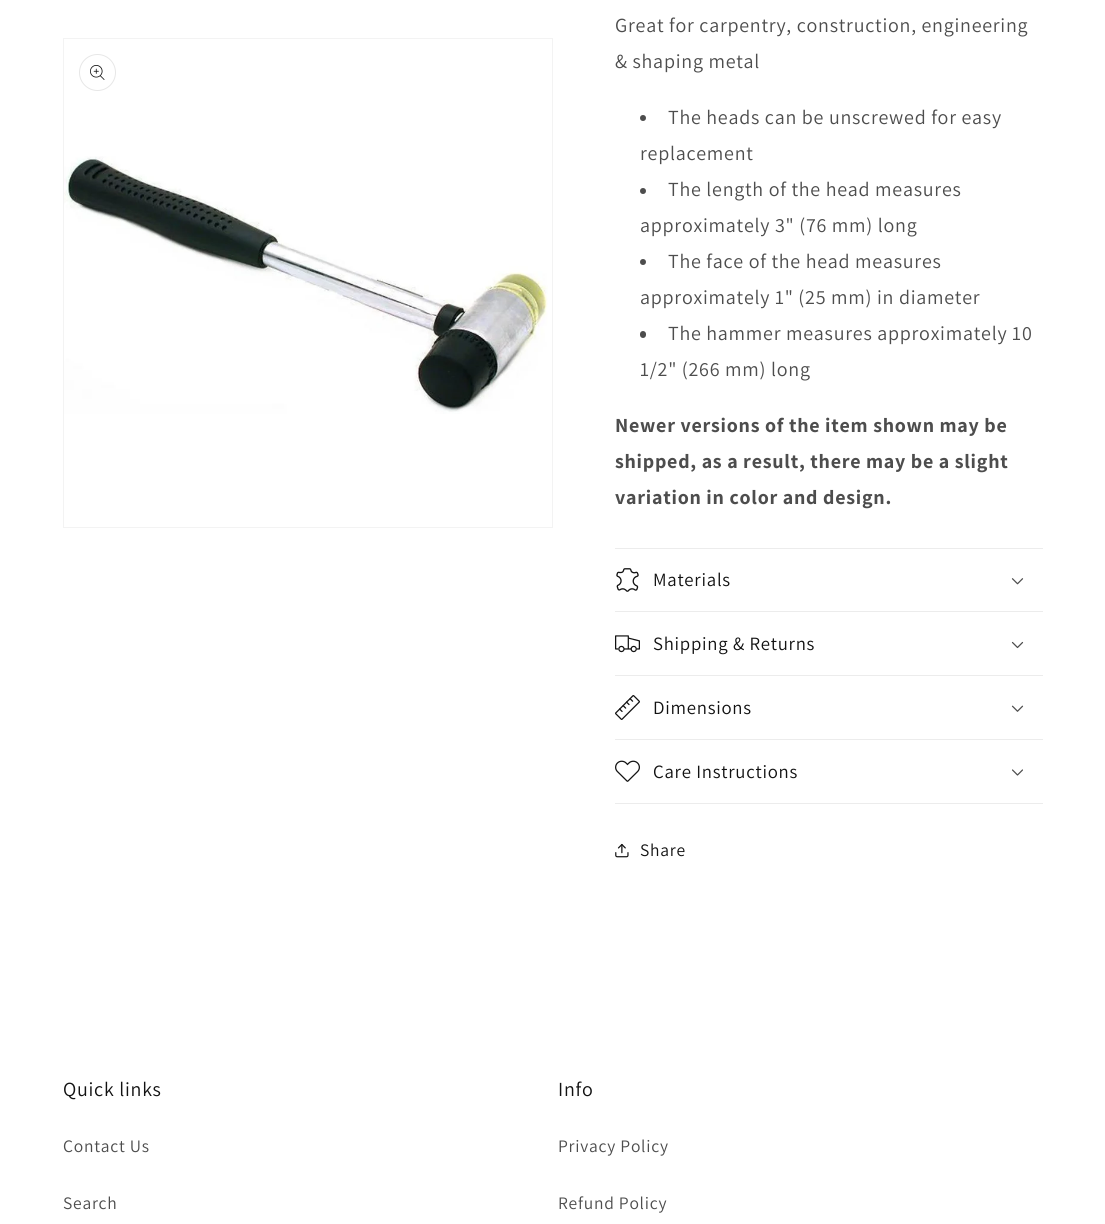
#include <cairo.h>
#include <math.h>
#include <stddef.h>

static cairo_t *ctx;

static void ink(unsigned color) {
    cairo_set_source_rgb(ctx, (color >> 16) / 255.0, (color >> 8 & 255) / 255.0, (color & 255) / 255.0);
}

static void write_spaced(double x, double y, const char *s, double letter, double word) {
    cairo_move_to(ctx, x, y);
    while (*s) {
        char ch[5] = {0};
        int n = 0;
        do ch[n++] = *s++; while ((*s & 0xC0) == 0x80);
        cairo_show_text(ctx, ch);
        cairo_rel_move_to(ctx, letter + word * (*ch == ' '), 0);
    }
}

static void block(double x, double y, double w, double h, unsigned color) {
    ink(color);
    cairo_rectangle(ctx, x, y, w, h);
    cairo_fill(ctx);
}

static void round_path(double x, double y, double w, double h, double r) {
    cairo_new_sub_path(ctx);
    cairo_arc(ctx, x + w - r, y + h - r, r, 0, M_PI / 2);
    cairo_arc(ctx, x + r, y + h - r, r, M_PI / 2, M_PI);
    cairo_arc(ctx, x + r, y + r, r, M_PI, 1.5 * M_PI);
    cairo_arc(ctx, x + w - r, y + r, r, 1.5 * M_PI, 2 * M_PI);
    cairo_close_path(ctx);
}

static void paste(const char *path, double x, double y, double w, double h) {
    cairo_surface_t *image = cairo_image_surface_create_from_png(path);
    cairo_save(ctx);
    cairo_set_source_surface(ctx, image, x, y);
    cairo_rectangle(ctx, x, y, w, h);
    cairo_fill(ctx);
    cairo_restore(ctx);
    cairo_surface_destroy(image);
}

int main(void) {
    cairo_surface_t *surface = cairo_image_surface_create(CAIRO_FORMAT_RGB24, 1105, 1224);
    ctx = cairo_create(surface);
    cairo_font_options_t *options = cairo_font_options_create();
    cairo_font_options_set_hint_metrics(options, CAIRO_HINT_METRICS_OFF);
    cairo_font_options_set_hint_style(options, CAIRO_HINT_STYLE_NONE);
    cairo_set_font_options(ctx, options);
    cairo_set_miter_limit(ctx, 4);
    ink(0xffffff);
    cairo_paint(ctx);
    cairo_rectangle(ctx, 63.5, 38.5, 489, 489);
    ink(0xf3f3f3);
    cairo_set_line_width(ctx, 1);
    cairo_stroke(ctx);
    cairo_arc(ctx, 97.5, 72.5, 18, 0, 2 * M_PI);
    ink(0xe7e7e7);
    cairo_stroke(ctx);
    paste("pic1.png", 90, 65, 15, 15);
    paste("pic2.png", 64, 156, 484, 258);
    cairo_select_font_face(ctx, "Assistant", CAIRO_FONT_SLANT_NORMAL, CAIRO_FONT_WEIGHT_NORMAL);
    cairo_set_font_size(ctx, 20);
    ink(0x4d4d4d);
    write_spaced(615, 32, "Great for carpentry, construction, engineering", 0.75, 0);
    write_spaced(615, 68, "& shaping metal", 0.75, 0);
    cairo_new_path(ctx);
    cairo_arc(ctx, 643, 118, 3, 0, 2 * M_PI);
    cairo_fill(ctx);
    write_spaced(668, 124, "The heads can be unscrewed for easy", 0.75, 0);
    write_spaced(640, 160, "replacement", 0.75, 0);
    cairo_new_path(ctx);
    cairo_arc(ctx, 643, 191, 3, 0, 2 * M_PI);
    cairo_fill(ctx);
    write_spaced(668, 196, "The length of the head measures", 0.75, 0);
    write_spaced(640, 232, "approximately 3\" (76 mm) long", 0.75, 0);
    cairo_new_path(ctx);
    cairo_arc(ctx, 643, 262, 3, 0, 2 * M_PI);
    cairo_fill(ctx);
    write_spaced(668, 268, "The face of the head measures", 0.75, 0);
    write_spaced(640, 304, "approximately 1\" (25 mm) in diameter", 0.75, 0);
    round_path(640, 331, 6, 7, 3);
    cairo_fill(ctx);
    write_spaced(668, 340, "The hammer measures approximately 10", 0.75, 0);
    write_spaced(640, 376, "1/2\" (266 mm) long", 0.75, 0);
    cairo_select_font_face(ctx, "Assistant", CAIRO_FONT_SLANT_NORMAL, CAIRO_FONT_WEIGHT_BOLD);
    write_spaced(615, 432, "Newer versions of the item shown may be", 0.75, 0);
    write_spaced(615, 468, "shipped, as a result, there may be a slight", 0.75, 0);
    write_spaced(615, 504, "variation in color and design.", 0.75, 0);
    block(615, 548, 428, 1, 0xececec);
    block(615, 611, 428, 1, 0xececec);
    paste("pic3.png", 616, 568, 23, 24);
    cairo_select_font_face(ctx, "Assistant", CAIRO_FONT_SLANT_NORMAL, CAIRO_FONT_WEIGHT_NORMAL);
    cairo_set_font_size(ctx, 18.75);
    ink(0x121212);
    write_spaced(653, 586, "Materials", 0.75, 0);
    paste("pic4.png", 1011, 578, 13, 7);
    block(615, 675, 428, 1, 0xececec);
    paste("pic5.png", 615, 635, 25, 18);
    ink(0x121212);
    write_spaced(653, 650, "Shipping & Returns", 0.75, 0);
    paste("pic6.png", 1011, 641, 13, 8);
    block(615, 739, 428, 1, 0xececec);
    paste("pic7.png", 615, 695, 25, 25);
    ink(0x121212);
    write_spaced(653, 714, "Dimensions", 0.75, 0);
    paste("pic8.png", 1011, 705, 13, 7);
    block(615, 803, 428, 1, 0xececec);
    paste("pic9.png", 615, 760, 25, 22);
    ink(0x121212);
    write_spaced(653, 778, "Care Instructions", 0.75, 0);
    paste("pic10.png", 1012, 769, 11, 7);
    paste("pic11.png", 615, 843, 14, 15);
    cairo_set_font_size(ctx, 17.5);
    write_spaced(640, 856, "Share", 0.75, 0);
    cairo_set_font_size(ctx, 20);
    write_spaced(63, 1096, "Quick links", 0.75, 0);
    cairo_set_font_size(ctx, 17.5);
    ink(0x4d4d4d);
    write_spaced(63, 1152, "Contact Us", 0.75, 0);
    write_spaced(63, 1209, "Search", 0.75, 0);
    cairo_set_font_size(ctx, 20);
    ink(0x121212);
    write_spaced(558, 1096, "Info", 0.75, 0);
    cairo_set_font_size(ctx, 17.5);
    ink(0x4d4d4d);
    write_spaced(558, 1152, "Privacy Policy", 0.75, 0);
    write_spaced(558, 1209, "Refund Policy", 0.75, 0);
    cairo_surface_write_to_png(surface, "screenshot.png");
    cairo_font_options_destroy(options);
    cairo_destroy(ctx);
    cairo_surface_destroy(surface);
    return 0;
}
